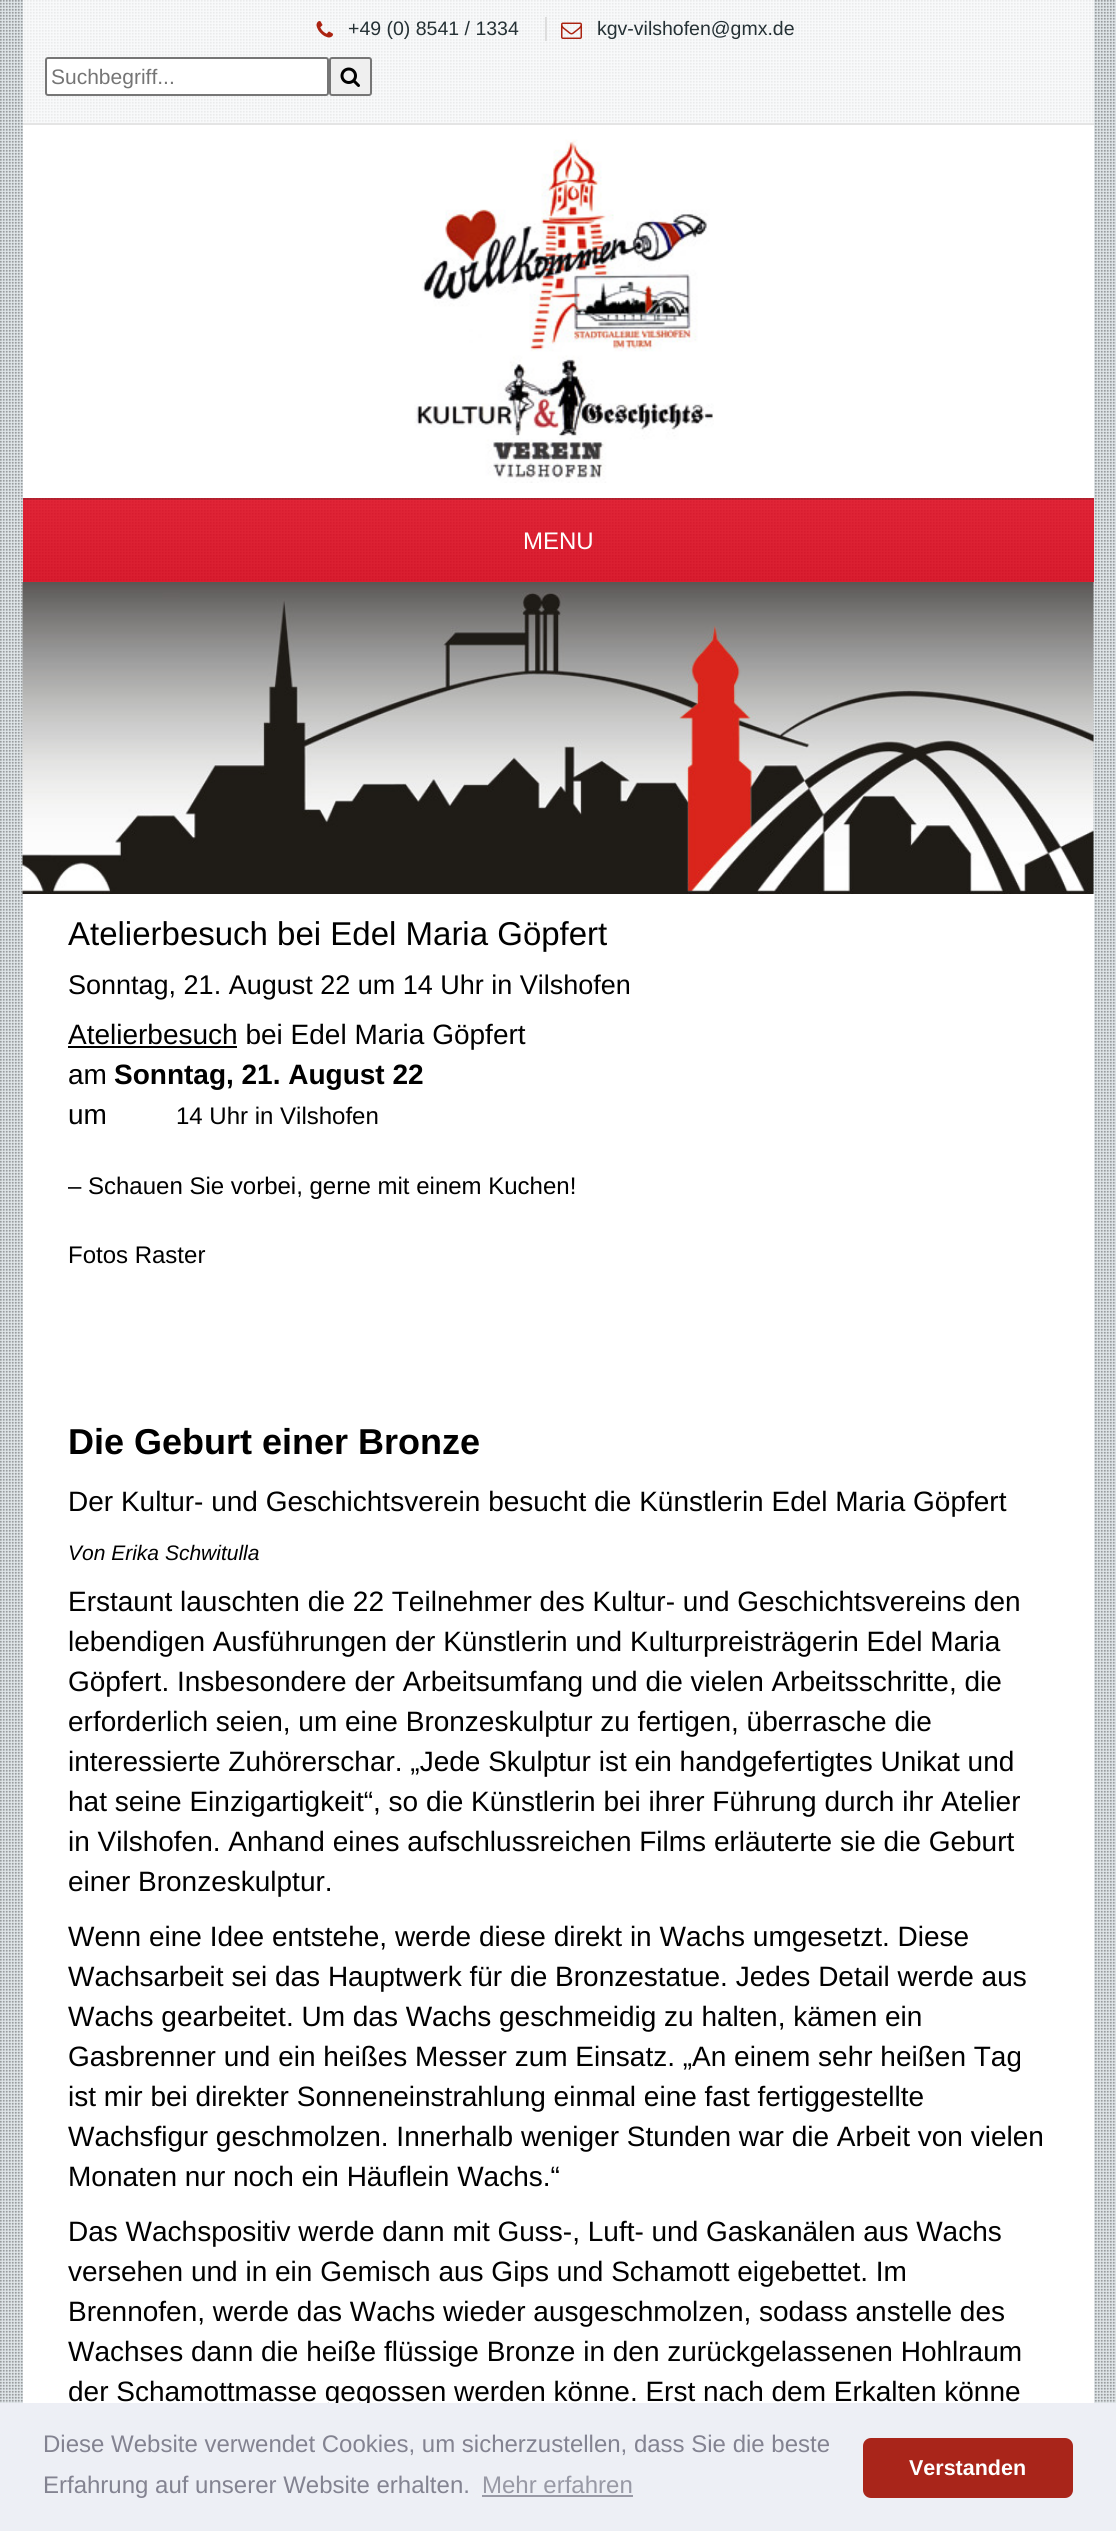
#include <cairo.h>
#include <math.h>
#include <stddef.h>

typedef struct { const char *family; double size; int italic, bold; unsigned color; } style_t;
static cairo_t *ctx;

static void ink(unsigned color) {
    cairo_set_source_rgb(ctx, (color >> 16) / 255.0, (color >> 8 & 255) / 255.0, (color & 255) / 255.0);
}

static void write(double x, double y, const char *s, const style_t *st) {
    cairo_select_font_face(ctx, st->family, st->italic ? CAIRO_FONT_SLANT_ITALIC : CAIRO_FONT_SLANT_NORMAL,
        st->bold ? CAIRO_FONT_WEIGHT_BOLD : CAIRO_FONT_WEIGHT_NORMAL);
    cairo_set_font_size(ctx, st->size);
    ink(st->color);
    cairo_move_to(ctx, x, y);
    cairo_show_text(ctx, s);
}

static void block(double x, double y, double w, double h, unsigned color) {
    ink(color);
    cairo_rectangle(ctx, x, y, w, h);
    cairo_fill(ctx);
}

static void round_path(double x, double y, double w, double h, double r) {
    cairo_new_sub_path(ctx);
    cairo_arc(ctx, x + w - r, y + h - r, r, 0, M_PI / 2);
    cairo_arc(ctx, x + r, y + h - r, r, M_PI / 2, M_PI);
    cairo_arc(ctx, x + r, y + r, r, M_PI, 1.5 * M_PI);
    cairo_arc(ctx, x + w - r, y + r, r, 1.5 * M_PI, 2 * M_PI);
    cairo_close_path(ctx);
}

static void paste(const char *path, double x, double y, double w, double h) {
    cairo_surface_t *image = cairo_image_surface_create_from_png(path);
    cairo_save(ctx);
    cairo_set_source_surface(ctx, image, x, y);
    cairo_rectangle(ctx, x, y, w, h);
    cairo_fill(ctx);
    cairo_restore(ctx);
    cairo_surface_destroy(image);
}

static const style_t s1 = {"Liberation Sans", 19.5, 0, 0, 0x253135};
static const style_t s2 = {"Liberation Sans", 21, 0, 0, 0x757575};
static const style_t s3 = {"Liberation Sans", 24, 0, 0, 0xffffff};
static const style_t s4 = {"Liberation Sans", 33, 0, 0, 0x000000};
static const style_t s5 = {"Liberation Sans", 27, 0, 0, 0x000000};
static const style_t s6 = {"Liberation Sans", 28, 0, 0, 0x000000};
static const style_t s7 = {"Liberation Sans", 28, 0, 1, 0x000000};
static const style_t s8 = {"Liberation Sans", 24, 0, 0, 0x000000};
static const style_t s9 = {"Liberation Sans", 36, 0, 1, 0x000000};
static const style_t s10 = {"Liberation Sans", 21, 1, 0, 0x000000};
static const style_t s11 = {"Liberation Sans", 24, 0, 0, 0x838391};
static const style_t s12 = {"Liberation Sans", 24, 0, 0, 0x9899a5};
static const style_t s13 = {"Liberation Sans", 21.5, 0, 1, 0xffffff};

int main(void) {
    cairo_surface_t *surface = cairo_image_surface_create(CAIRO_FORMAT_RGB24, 1116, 2531);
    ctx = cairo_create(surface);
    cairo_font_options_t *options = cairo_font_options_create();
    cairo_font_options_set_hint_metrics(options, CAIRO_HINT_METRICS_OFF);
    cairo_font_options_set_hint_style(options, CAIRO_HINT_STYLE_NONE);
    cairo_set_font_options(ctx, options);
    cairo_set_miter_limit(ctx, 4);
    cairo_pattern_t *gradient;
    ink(0xe3e9ec);
    cairo_paint(ctx);
    paste("pic1.png", 0, 0, 1116, 2403);
    cairo_set_source_rgba(ctx, 1, 1, 1, 0.8);
    cairo_rectangle(ctx, 23, 0, 1071, 123);
    cairo_fill(ctx);
    block(23, 123, 1071, 2, 0xe4e4e4);
    paste("pic2.png", 316, 21, 17, 17);
    write(348, 35, "+49 (0) 8541 / 1334", &s1);
    block(545, 17, 2, 24, 0xdddddd);
    paste("pic3.png", 561, 22, 21, 17);
    write(597, 35, "kgv-vilshofen@gmx.de", &s1);
    ink(0xffffff);
    round_path(46, 58, 282, 37, 2);
    cairo_fill_preserve(ctx);
    ink(0x767676);
    cairo_stroke(ctx);
    write(51, 84, "Suchbegriff...", &s2);
    ink(0xefefef);
    round_path(330, 58, 41, 37, 2);
    cairo_fill_preserve(ctx);
    ink(0x767676);
    cairo_stroke(ctx);
    paste("pic4.png", 340, 67, 20, 20);
    block(23, 125, 1071, 373, 0xffffff);
    paste("pic5.png", 414, 139, 300, 344);
    cairo_set_source_rgba(ctx, 0.878, 0.039, 0.118, 0.9);
    cairo_rectangle(ctx, 23, 498, 1071, 84);
    cairo_fill(ctx);
    gradient = cairo_pattern_create_linear(558, 500, 558, 417);
    cairo_pattern_add_color_stop_rgba(gradient, 0, 0, 0, 0, 0.03);
    cairo_pattern_add_color_stop_rgba(gradient, 1, 1, 1, 1, 0.03);
    cairo_set_source(ctx, gradient);
    cairo_pattern_destroy(gradient);
    cairo_rectangle(ctx, 23, 498, 1071, 2);
    cairo_fill(ctx);
    gradient = cairo_pattern_create_linear(558, 582, 558, 500);
    cairo_pattern_add_color_stop_rgba(gradient, 0, 0, 0, 0, 0.03);
    cairo_pattern_add_color_stop_rgba(gradient, 1, 1, 1, 1, 0.03);
    cairo_set_source(ctx, gradient);
    cairo_pattern_destroy(gradient);
    cairo_rectangle(ctx, 23, 500, 1071, 82);
    cairo_fill(ctx);
    cairo_set_source_rgba(ctx, 0.22, 0.22, 0.22, 0.2);
    cairo_rectangle(ctx, 23, 498, 1071, 2);
    cairo_fill(ctx);
    write(523, 549, "MENU", &s3);
    paste("pic6.png", 22, 582, 1072, 312);
    block(23, 894, 1071, 1509, 0xffffff);
    write(68, 945, "Atelierbesuch bei Edel Maria Göpfert", &s4);
    write(68, 994, "Sonntag, 21. August 22 um 14 Uhr in Vilshofen", &s5);
    block(68, 1046, 169, 2, 0x000000);
    write(68, 1044, "Atelierbesuch bei Edel Maria Göpfert", &s6);
    write(68, 1084, "am", &s6);
    write(114, 1084, "Sonntag, 21. August 22", &s7);
    write(68, 1124, "um", &s6);
    write(176, 1124, "14 Uhr in Vilshofen", &s8);
    write(68, 1194, "– Schauen Sie vorbei, gerne mit einem Kuchen!", &s8);
    write(68, 1263, "Fotos Raster", &s8);
    write(68, 1454, "Die Geburt einer Bronze", &s9);
    write(68, 1511, "Der Kultur- und Geschichtsverein besucht die Künstlerin Edel Maria Göpfert", &s6);
    write(68, 1560, "Von Erika Schwitulla", &s10);
    write(68, 1611, "Erstaunt lauschten die 22 Teilnehmer des Kultur- und Geschichtsvereins den", &s6);
    write(68, 1651, "lebendigen Ausführungen der Künstlerin und Kulturpreisträgerin Edel Maria", &s6);
    write(68, 1691, "Göpfert. Insbesondere der Arbeitsumfang und die vielen Arbeitsschritte, die", &s6);
    write(68, 1731, "erforderlich seien, um eine Bronzeskulptur zu fertigen, überrasche die", &s6);
    write(68, 1771, "interessierte Zuhörerschar. „Jede Skulptur ist ein handgefertigtes Unikat und", &s6);
    write(68, 1811, "hat seine Einzigartigkeit“, so die Künstlerin bei ihrer Führung durch ihr Atelier", &s6);
    write(68, 1851, "in Vilshofen. Anhand eines aufschlussreichen Films erläuterte sie die Geburt", &s6);
    write(68, 1891, "einer Bronzeskulptur.", &s6);
    write(68, 1946, "Wenn eine Idee entstehe, werde diese direkt in Wachs umgesetzt. Diese", &s6);
    write(68, 1986, "Wachsarbeit sei das Hauptwerk für die Bronzestatue. Jedes Detail werde aus", &s6);
    write(68, 2026, "Wachs gearbeitet. Um das Wachs geschmeidig zu halten, kämen ein", &s6);
    write(68, 2066, "Gasbrenner und ein heißes Messer zum Einsatz. „An einem sehr heißen Tag", &s6);
    write(68, 2106, "ist mir bei direkter Sonneneinstrahlung einmal eine fast fertiggestellte", &s6);
    write(68, 2146, "Wachsfigur geschmolzen. Innerhalb weniger Stunden war die Arbeit von vielen", &s6);
    write(68, 2186, "Monaten nur noch ein Häuflein Wachs.“", &s6);
    write(68, 2241, "Das Wachspositiv werde dann mit Guss-, Luft- und Gaskanälen aus Wachs", &s6);
    write(68, 2281, "versehen und in ein Gemisch aus Gips und Schamott eigebettet. Im", &s6);
    write(68, 2321, "Brennofen, werde das Wachs wieder ausgeschmolzen, sodass anstelle des", &s6);
    write(68, 2361, "Wachses dann die heiße flüssige Bronze in den zurückgelassenen Hohlraum", &s6);
    write(68, 2401, "der Schamottmasse gegossen werden könne. Erst nach dem Erkalten könne", &s6);
    block(0, 2403, 1116, 128, 0xedeff5);
    write(43, 2452, "Diese Website verwendet Cookies, um sicherzustellen, dass Sie die beste", &s11);
    write(43, 2493, "Erfahrung auf unserer Website erhalten.", &s11);
    write(482, 2493, "Mehr erfahren", &s12);
    block(482, 2495, 151, 2, 0x9899a5);
    ink(0xa9251a);
    round_path(863, 2438, 210, 60, 8);
    cairo_fill(ctx);
    write(909, 2475, "Verstanden", &s13);
    cairo_surface_write_to_png(surface, "screenshot.png");
    cairo_font_options_destroy(options);
    cairo_destroy(ctx);
    cairo_surface_destroy(surface);
    return 0;
}
